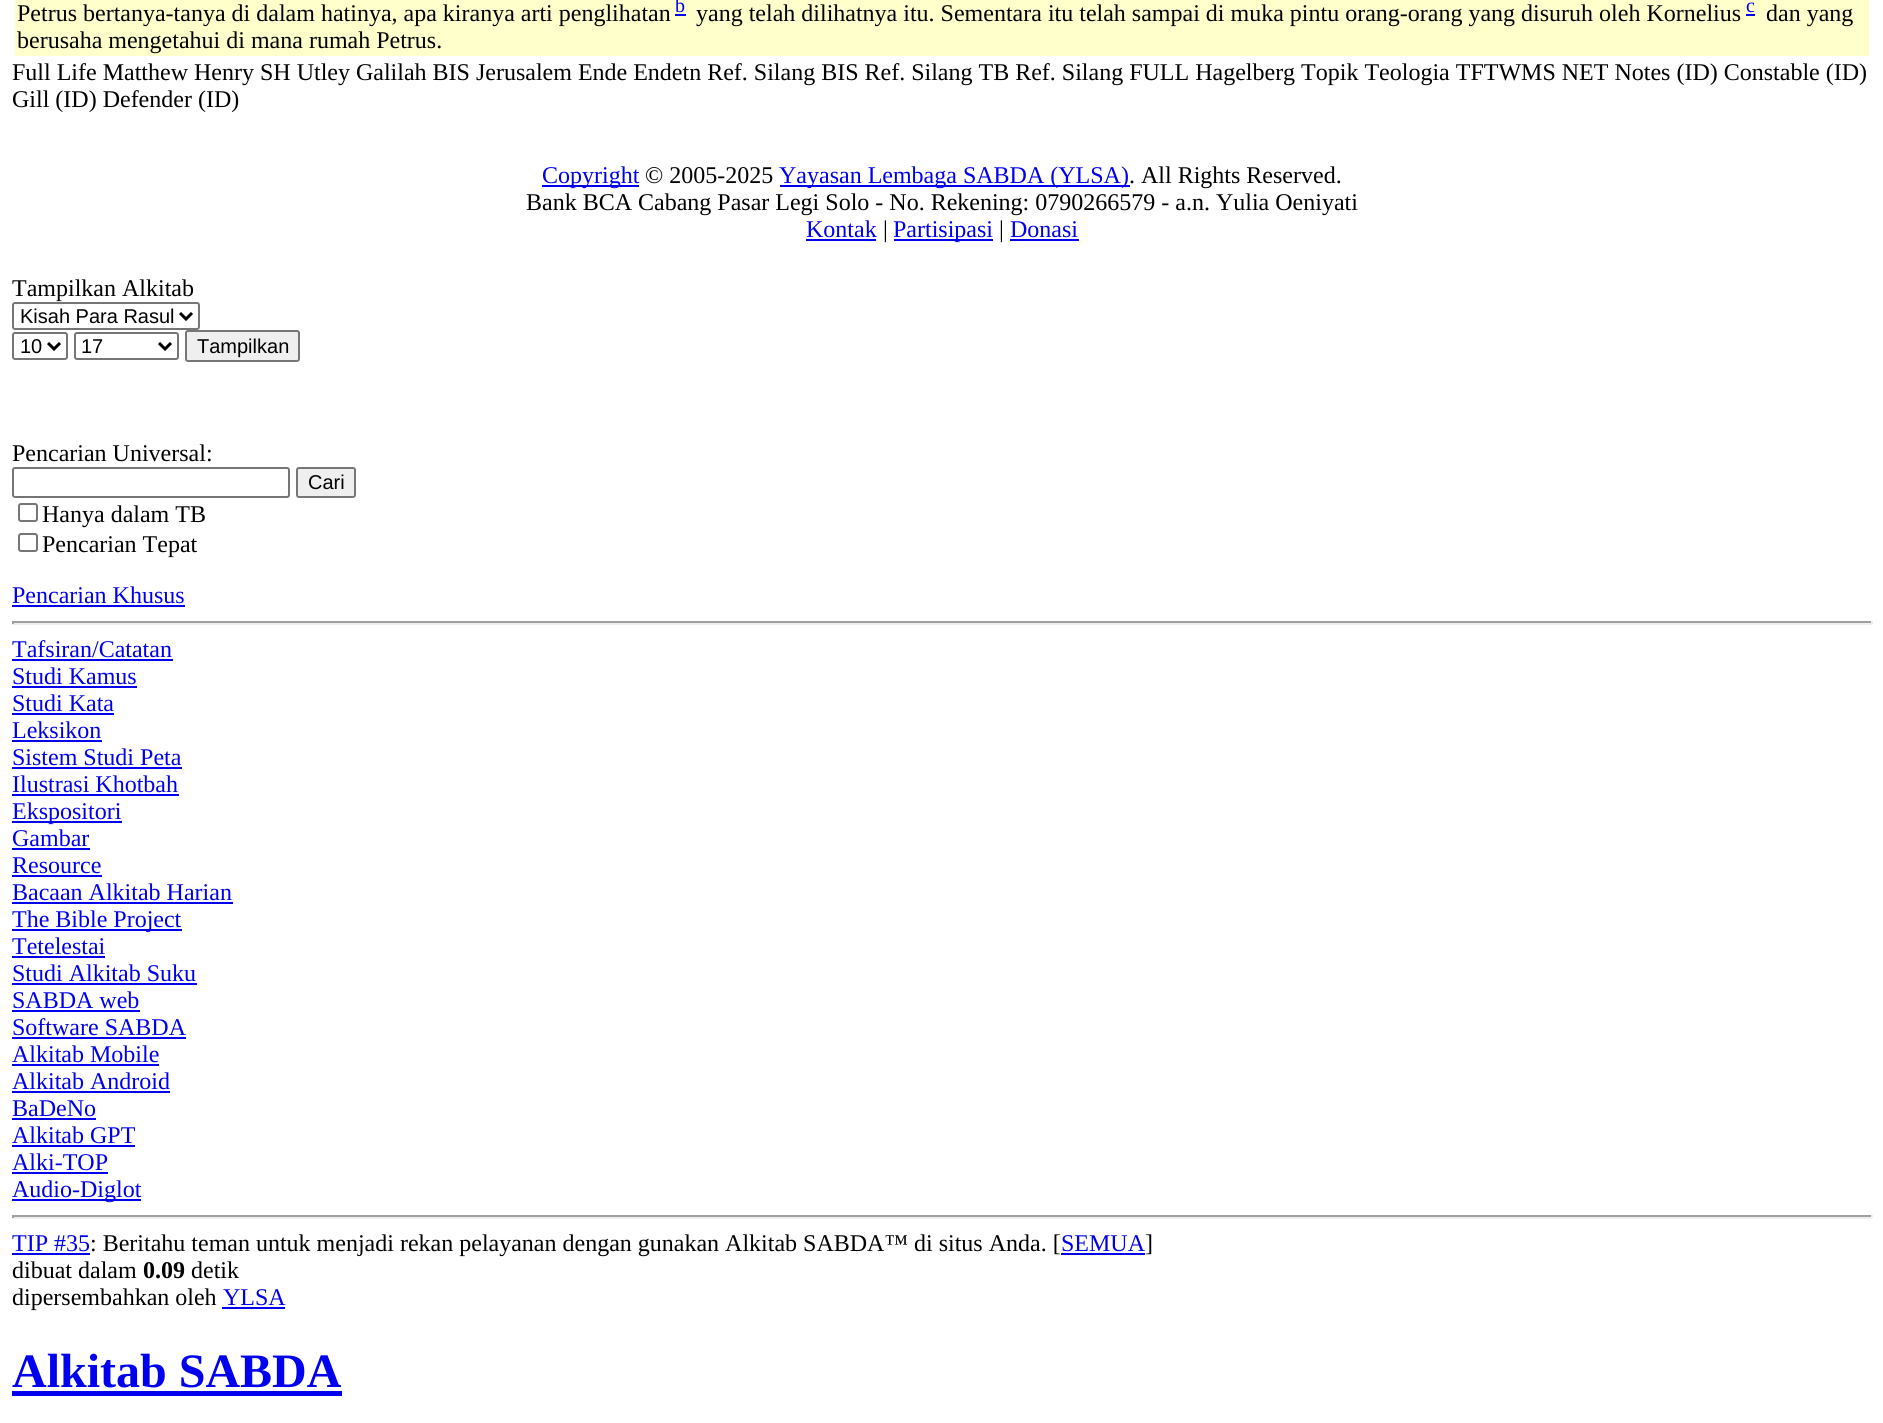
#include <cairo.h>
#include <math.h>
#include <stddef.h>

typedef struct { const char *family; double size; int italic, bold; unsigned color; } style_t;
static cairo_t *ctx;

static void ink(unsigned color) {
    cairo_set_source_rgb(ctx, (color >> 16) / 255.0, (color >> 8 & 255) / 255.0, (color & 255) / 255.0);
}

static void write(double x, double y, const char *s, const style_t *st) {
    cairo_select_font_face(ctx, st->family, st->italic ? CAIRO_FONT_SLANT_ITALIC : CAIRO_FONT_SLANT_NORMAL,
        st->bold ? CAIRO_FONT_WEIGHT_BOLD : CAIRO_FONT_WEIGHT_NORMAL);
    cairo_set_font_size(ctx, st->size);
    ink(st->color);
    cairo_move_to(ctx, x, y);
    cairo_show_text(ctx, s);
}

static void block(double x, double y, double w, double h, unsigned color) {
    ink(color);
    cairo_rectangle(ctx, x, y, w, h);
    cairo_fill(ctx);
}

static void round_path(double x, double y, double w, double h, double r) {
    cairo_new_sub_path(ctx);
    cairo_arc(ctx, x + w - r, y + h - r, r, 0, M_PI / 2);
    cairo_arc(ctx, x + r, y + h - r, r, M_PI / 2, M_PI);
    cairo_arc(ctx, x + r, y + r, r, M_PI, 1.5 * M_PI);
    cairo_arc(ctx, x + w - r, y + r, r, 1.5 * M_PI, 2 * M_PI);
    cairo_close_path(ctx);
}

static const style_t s1 = {"Liberation Serif", 24, 0, 0, 0x000000};
static const style_t s2 = {"Liberation Serif", 20, 0, 0, 0x0000ee};
static const style_t s3 = {"Liberation Serif", 24, 0, 0, 0x0000ee};
static const style_t s4 = {"Liberation Sans", 20, 0, 0, 0x000000};
static const style_t s5 = {"Liberation Serif", 24, 0, 1, 0x000000};
static const style_t s6 = {"Liberation Serif", 48, 0, 1, 0x0000ee};

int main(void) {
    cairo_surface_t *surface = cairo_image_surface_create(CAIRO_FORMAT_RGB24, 1883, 1423);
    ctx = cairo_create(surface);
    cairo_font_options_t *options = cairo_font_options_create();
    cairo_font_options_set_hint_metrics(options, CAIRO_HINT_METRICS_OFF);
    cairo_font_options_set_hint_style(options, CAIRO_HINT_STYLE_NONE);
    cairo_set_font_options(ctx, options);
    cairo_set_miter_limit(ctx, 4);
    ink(0xffffff);
    cairo_paint(ctx);
    block(15, 0, 1854, 56, 0xffffcc);
    write(17, 21, "Petrus bertanya-tanya di dalam hatinya, apa kiranya arti penglihatan", &s1);
    write(675, 12, "b", &s2);
    block(675, 14, 11, 2, 0x0000ee);
    write(696, 21, "yang telah dilihatnya itu. Sementara itu telah sampai di muka pintu orang-orang yang disuruh oleh Kornelius", &s1);
    write(1746, 12, "c", &s2);
    block(1746, 14, 9, 2, 0x0000ee);
    write(1766, 21, "dan yang", &s1);
    write(17, 48, "berusaha mengetahui di mana rumah Petrus.", &s1);
    write(12, 80, "Full Life Matthew Henry SH Utley Galilah BIS Jerusalem Ende Endetn Ref. Silang BIS Ref. Silang TB Ref. Silang FULL Hagelberg Topik Teologia TFTWMS NET Notes (ID) Constable (ID)", &s1);
    write(12, 107, "Gill (ID) Defender (ID)", &s1);
    block(542, 185, 97, 2, 0x0000ee);
    write(542, 183, "Copyright", &s3);
    write(645, 183, "© 2005-2025", &s1);
    block(780, 185, 350, 2, 0x0000ee);
    write(779, 183, "Yayasan Lembaga SABDA (YLSA)", &s3);
    write(1129, 183, ". All Rights Reserved.", &s1);
    write(526, 210, "Bank BCA Cabang Pasar Legi Solo - No. Rekening: 0790266579 - a.n. Yulia Oeniyati", &s1);
    write(806, 237, "Kontak", &s3);
    block(806, 239, 70, 2, 0x0000ee);
    write(883, 237, "|", &s1);
    block(894, 239, 99, 2, 0x0000ee);
    write(893, 237, "Partisipasi", &s3);
    write(999, 237, "|", &s1);
    write(1010, 237, "Donasi", &s3);
    block(1010, 239, 69, 2, 0x0000ee);
    write(12, 296, "Tampilkan Alkitab", &s1);
    round_path(13, 303, 186, 26, 2);
    ink(0x767676);
    cairo_stroke(ctx);
    cairo_new_path(ctx);
    cairo_move_to(ctx, 180, 313);
    cairo_line_to(ctx, 186, 319);
    cairo_line_to(ctx, 192, 313);
    ink(0x000000);
    cairo_set_line_width(ctx, 3);
    cairo_stroke(ctx);
    write(20, 323, "Kisah Para Rasul", &s4);
    round_path(13, 333, 54, 26, 2);
    ink(0x767676);
    cairo_set_line_width(ctx, 2);
    cairo_stroke(ctx);
    cairo_new_path(ctx);
    cairo_move_to(ctx, 48, 343);
    cairo_line_to(ctx, 54, 349);
    cairo_line_to(ctx, 60, 343);
    ink(0x000000);
    cairo_set_line_width(ctx, 3);
    cairo_stroke(ctx);
    write(20, 353, "10", &s4);
    round_path(75, 333, 103, 26, 2);
    ink(0x767676);
    cairo_set_line_width(ctx, 2);
    cairo_stroke(ctx);
    cairo_new_path(ctx);
    cairo_move_to(ctx, 159, 343);
    cairo_line_to(ctx, 165, 349);
    cairo_line_to(ctx, 171, 343);
    ink(0x000000);
    cairo_set_line_width(ctx, 3);
    cairo_stroke(ctx);
    write(81, 353, "17", &s4);
    ink(0xefefef);
    round_path(186, 331, 113, 30, 2);
    cairo_fill_preserve(ctx);
    ink(0x767676);
    cairo_set_line_width(ctx, 2);
    cairo_stroke(ctx);
    write(197, 353, "Tampilkan", &s4);
    write(12, 461, "Pencarian Universal:", &s1);
    round_path(13, 468, 276, 29, 2);
    ink(0x767676);
    cairo_stroke(ctx);
    ink(0xefefef);
    round_path(297, 468, 58, 29, 2);
    cairo_fill_preserve(ctx);
    ink(0x767676);
    cairo_stroke(ctx);
    write(308, 489, "Cari", &s4);
    round_path(19, 504, 18, 17, 2);
    ink(0x767676);
    cairo_stroke(ctx);
    write(42, 522, "Hanya dalam TB", &s1);
    round_path(19, 534, 18, 17, 2);
    ink(0x767676);
    cairo_stroke(ctx);
    write(42, 552, "Pencarian Tepat", &s1);
    write(12, 603, "Pencarian Khusus", &s3);
    block(12, 605, 173, 2, 0x0000ee);
    block(12, 621, 1860, 2, 0x9f9f9f);
    block(1871, 621, 2, 3, 0xeeeeee);
    block(12, 623, 1860, 2, 0xeeeeee);
    block(12, 621, 2, 3, 0x9f9f9f);
    write(12, 657, "Tafsiran/Catatan", &s3);
    block(12, 659, 161, 2, 0x0000ee);
    write(12, 684, "Studi Kamus", &s3);
    block(12, 686, 125, 2, 0x0000ee);
    write(12, 711, "Studi Kata", &s3);
    block(12, 713, 102, 2, 0x0000ee);
    write(12, 738, "Leksikon", &s3);
    block(12, 740, 90, 2, 0x0000ee);
    write(12, 765, "Sistem Studi Peta", &s3);
    block(12, 767, 170, 2, 0x0000ee);
    write(12, 792, "Ilustrasi Khotbah", &s3);
    block(12, 794, 167, 2, 0x0000ee);
    block(12, 821, 110, 2, 0x0000ee);
    write(12, 819, "Ekspositori", &s3);
    write(12, 846, "Gambar", &s3);
    block(12, 848, 78, 2, 0x0000ee);
    write(12, 873, "Resource", &s3);
    block(12, 875, 90, 2, 0x0000ee);
    write(12, 900, "Bacaan Alkitab Harian", &s3);
    block(12, 902, 221, 2, 0x0000ee);
    block(12, 929, 170, 2, 0x0000ee);
    write(12, 927, "The Bible Project", &s3);
    write(12, 954, "Tetelestai", &s3);
    block(12, 956, 93, 2, 0x0000ee);
    write(12, 981, "Studi Alkitab Suku", &s3);
    block(12, 983, 185, 2, 0x0000ee);
    write(12, 1008, "SABDA web", &s3);
    block(12, 1010, 128, 2, 0x0000ee);
    write(12, 1035, "Software SABDA", &s3);
    block(12, 1037, 174, 2, 0x0000ee);
    write(12, 1062, "Alkitab Mobile", &s3);
    block(12, 1064, 147, 2, 0x0000ee);
    write(12, 1089, "Alkitab Android", &s3);
    block(12, 1091, 158, 2, 0x0000ee);
    write(12, 1116, "BaDeNo", &s3);
    block(12, 1118, 84, 2, 0x0000ee);
    write(12, 1143, "Alkitab GPT", &s3);
    block(12, 1145, 123, 2, 0x0000ee);
    write(12, 1170, "Alki-TOP", &s3);
    block(12, 1172, 96, 2, 0x0000ee);
    block(12, 1199, 129, 2, 0x0000ee);
    write(12, 1197, "Audio-Diglot", &s3);
    block(12, 1215, 1860, 2, 0x9f9f9f);
    block(1871, 1215, 2, 3, 0xeeeeee);
    block(12, 1217, 1860, 2, 0xeeeeee);
    block(12, 1215, 2, 3, 0x9f9f9f);
    write(12, 1251, "TIP #35", &s3);
    block(12, 1253, 78, 2, 0x0000ee);
    write(90, 1251, ": Beritahu teman untuk menjadi rekan pelayanan dengan gunakan Alkitab SABDA™ di situs Anda. [", &s1);
    write(1061, 1251, "SEMUA", &s3);
    block(1061, 1253, 84, 2, 0x0000ee);
    write(1145, 1251, "]", &s1);
    write(12, 1278, "dibuat dalam", &s1);
    write(143, 1278, "0.09", &s5);
    write(191, 1278, "detik", &s1);
    write(12, 1305, "dipersembahkan oleh", &s1);
    write(223, 1305, "YLSA", &s3);
    block(222, 1307, 63, 2, 0x0000ee);
    write(12, 1387, "Alkitab SABDA", &s6);
    block(12, 1391, 330, 5, 0x0000ee);
    cairo_surface_write_to_png(surface, "screenshot.png");
    cairo_font_options_destroy(options);
    cairo_destroy(ctx);
    cairo_surface_destroy(surface);
    return 0;
}
